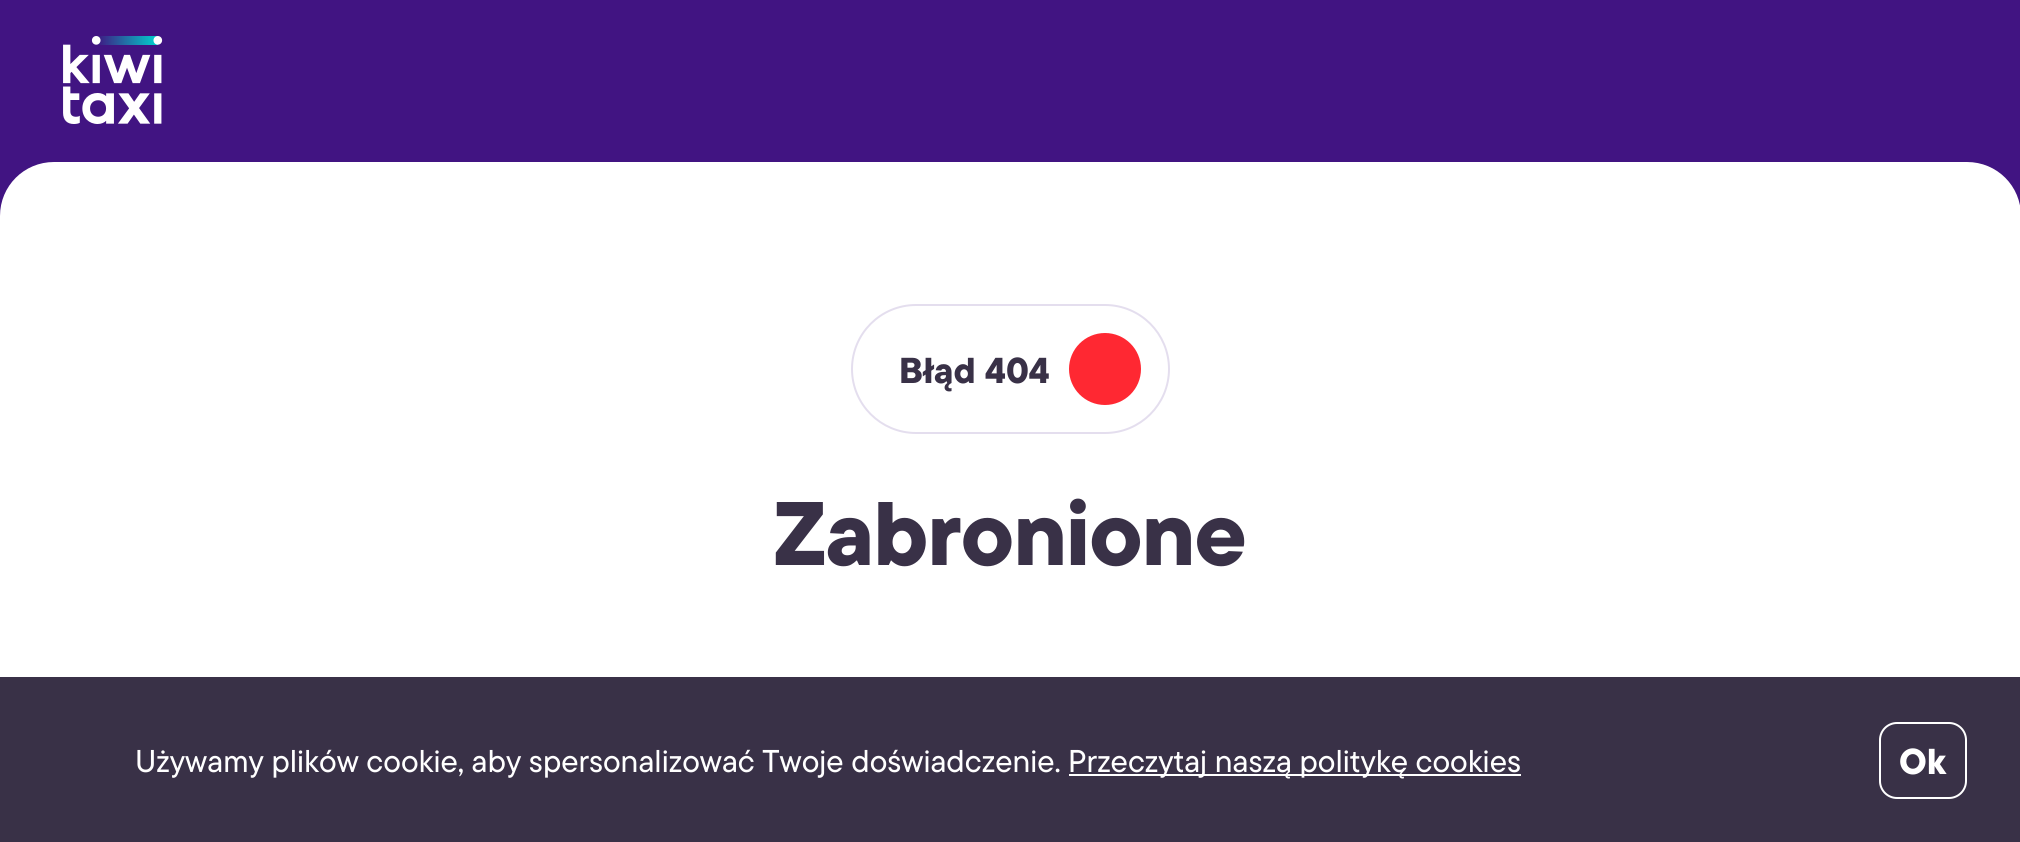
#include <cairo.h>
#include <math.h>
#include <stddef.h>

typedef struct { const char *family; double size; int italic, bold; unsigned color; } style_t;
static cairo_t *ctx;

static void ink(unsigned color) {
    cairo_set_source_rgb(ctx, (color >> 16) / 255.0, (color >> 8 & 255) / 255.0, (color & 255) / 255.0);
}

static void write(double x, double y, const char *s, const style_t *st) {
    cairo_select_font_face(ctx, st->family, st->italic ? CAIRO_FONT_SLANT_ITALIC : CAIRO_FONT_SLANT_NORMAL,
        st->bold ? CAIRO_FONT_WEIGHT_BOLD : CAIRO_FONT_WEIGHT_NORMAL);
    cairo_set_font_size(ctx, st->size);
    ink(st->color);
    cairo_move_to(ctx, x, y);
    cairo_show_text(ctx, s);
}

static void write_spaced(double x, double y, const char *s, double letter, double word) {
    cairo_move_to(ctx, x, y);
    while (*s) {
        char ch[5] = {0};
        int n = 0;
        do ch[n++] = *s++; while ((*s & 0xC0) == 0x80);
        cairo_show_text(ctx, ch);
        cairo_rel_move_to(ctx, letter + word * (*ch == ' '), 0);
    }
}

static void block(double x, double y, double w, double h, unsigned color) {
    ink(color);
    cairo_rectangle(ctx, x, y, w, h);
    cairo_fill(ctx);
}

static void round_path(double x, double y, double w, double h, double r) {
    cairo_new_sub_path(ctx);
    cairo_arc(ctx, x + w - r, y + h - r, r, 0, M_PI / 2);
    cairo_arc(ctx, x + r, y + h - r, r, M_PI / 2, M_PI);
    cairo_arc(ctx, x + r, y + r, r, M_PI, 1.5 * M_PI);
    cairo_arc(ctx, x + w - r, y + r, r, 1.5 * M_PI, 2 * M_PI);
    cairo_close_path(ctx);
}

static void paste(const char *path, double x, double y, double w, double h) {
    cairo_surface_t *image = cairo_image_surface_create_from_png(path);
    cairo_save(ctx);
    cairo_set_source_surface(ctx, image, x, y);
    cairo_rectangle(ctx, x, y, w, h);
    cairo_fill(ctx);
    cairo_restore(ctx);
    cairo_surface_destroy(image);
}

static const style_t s1 = {"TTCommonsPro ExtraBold", 36, 0, 0, 0x393147};
static const style_t s2 = {"TTCommonsPro Medium", 31.5, 0, 0, 0xffffff};
static const style_t s3 = {"TTCommonsPro ExtraBold", 36, 0, 0, 0xffffff};

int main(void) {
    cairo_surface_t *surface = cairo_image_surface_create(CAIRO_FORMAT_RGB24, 2020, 842);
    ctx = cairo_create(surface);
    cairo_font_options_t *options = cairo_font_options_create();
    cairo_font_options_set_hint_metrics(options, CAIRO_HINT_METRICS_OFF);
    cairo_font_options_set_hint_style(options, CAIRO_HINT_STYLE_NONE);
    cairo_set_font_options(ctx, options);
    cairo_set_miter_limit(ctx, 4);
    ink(0x411482);
    cairo_paint(ctx);
    paste("pic1.png", 63, 36, 100, 88);
    ink(0xffffff);
    cairo_new_path(ctx);
    cairo_move_to(ctx, 54, 162);
    cairo_line_to(ctx, 1967, 162);
    cairo_curve_to(ctx, 1997, 162, 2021, 186, 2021, 216);
    cairo_line_to(ctx, 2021, 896);
    cairo_line_to(ctx, 0, 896);
    cairo_line_to(ctx, 0, 216);
    cairo_curve_to(ctx, 0, 186, 24, 162, 54, 162);
    cairo_close_path(ctx);
    cairo_fill(ctx);
    ink(0xff2832);
    cairo_arc(ctx, 1105, 369, 36, 0, 2 * M_PI);
    cairo_fill(ctx);
    round_path(852, 305, 317, 128, 64);
    ink(0xe4deee);
    cairo_stroke(ctx);
    write(899, 383, "Błąd 404", &s1);
    cairo_set_font_size(ctx, 90);
    write_spaced(773, 565, "Zabronione", -1, 0);
    block(0, 677, 2020, 165, 0x393147);
    write(135, 772, "Używamy plików cookie, aby spersonalizować Twoje doświadczenie.", &s2);
    block(1069, 774, 452, 2, 0xffffff);
    write(1068, 772, "Przeczytaj naszą politykę cookies", &s2);
    round_path(1880, 723, 86, 75, 17);
    cairo_stroke(ctx);
    write(1899, 774, "Ok", &s3);
    cairo_surface_write_to_png(surface, "screenshot.png");
    cairo_font_options_destroy(options);
    cairo_destroy(ctx);
    cairo_surface_destroy(surface);
    return 0;
}
